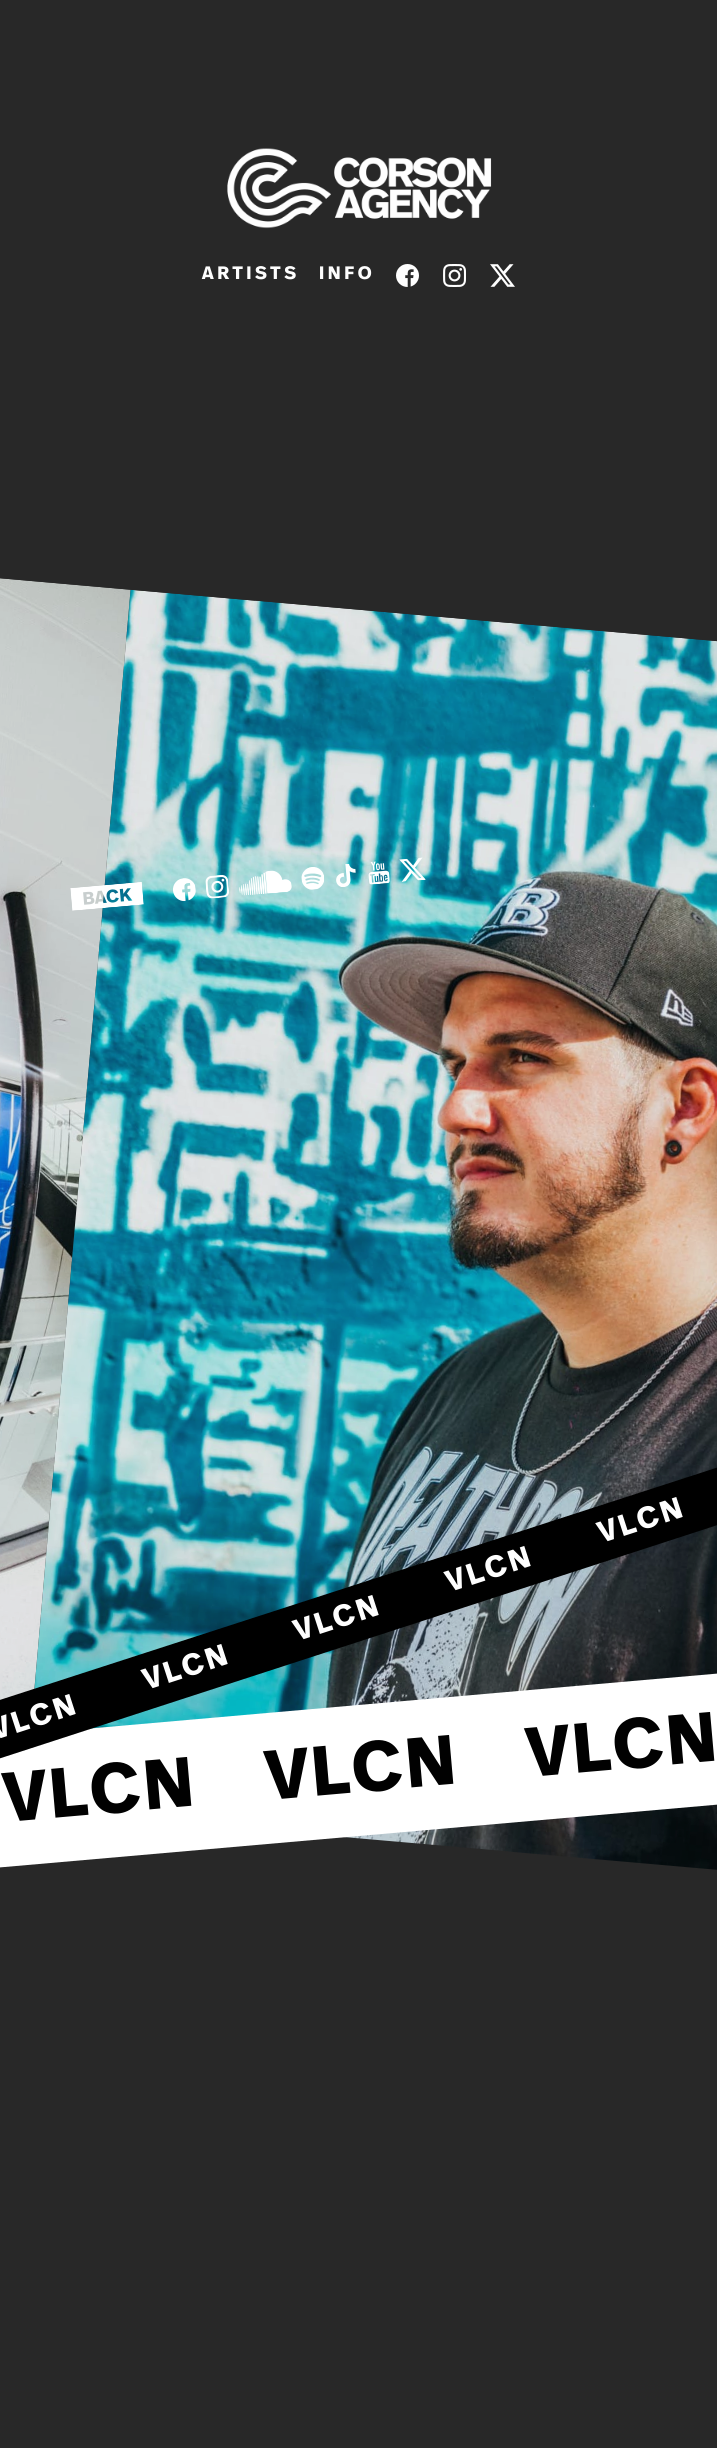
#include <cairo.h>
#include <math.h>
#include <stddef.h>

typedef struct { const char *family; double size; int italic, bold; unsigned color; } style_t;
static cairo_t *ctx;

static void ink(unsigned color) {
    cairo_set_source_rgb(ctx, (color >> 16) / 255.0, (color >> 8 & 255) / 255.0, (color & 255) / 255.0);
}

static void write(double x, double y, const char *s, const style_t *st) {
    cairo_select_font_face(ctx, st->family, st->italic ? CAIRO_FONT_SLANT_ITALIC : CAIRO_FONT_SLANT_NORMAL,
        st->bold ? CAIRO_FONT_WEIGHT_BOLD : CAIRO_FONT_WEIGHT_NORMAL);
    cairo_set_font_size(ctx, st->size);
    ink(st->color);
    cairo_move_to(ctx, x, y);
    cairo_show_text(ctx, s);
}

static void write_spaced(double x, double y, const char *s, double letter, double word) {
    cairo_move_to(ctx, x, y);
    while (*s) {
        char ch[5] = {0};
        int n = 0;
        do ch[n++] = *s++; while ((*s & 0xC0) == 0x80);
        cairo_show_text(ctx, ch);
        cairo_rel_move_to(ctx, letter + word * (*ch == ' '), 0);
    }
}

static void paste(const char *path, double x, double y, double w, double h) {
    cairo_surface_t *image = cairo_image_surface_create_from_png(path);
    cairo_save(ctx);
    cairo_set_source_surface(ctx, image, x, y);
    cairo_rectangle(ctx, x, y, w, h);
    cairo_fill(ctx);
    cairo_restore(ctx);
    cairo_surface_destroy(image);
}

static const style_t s1 = {"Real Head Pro", 18, 0, 1, 0xfefefe};

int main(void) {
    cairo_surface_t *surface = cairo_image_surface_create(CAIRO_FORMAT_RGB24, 717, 2448);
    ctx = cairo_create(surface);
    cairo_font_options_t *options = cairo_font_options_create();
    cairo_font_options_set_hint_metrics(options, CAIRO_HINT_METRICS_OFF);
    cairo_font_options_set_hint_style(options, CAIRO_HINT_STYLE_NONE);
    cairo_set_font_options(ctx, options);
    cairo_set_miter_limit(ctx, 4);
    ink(0x282828);
    cairo_paint(ctx);
    paste("pic1.png", 227, 148, 265, 81);
    write(202, 279, "A R T I S T S", &s1);
    write(319, 279, "I N F O", &s1);
    paste("pic2.png", 396, 264, 23, 23);
    paste("pic3.png", 443, 264, 23, 23);
    paste("pic4.png", 490, 264, 25, 23);
    paste("pic5.png", 0, 578, 131, 1122);
    paste("pic6.png", 34, 589, 683, 1281);
    paste("pic7.png", 70, 882, 74, 29);
    paste("pic8.png", 173, 878, 23, 23);
    paste("pic9.png", 205, 875, 24, 24);
    paste("pic10.png", 239, 870, 53, 26);
    paste("pic11.png", 301, 867, 23, 23);
    paste("pic12.png", 336, 863, 20, 24);
    paste("pic13.png", 368, 861, 22, 24);
    paste("pic14.png", 399, 857, 27, 25);
    ink(0xffffff);
    cairo_new_path(ctx);
    cairo_move_to(ctx, -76, 1743);
    cairo_line_to(ctx, 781, 1668);
    cairo_line_to(ctx, 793, 1798);
    cairo_line_to(ctx, -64, 1873);
    cairo_close_path(ctx);
    cairo_fill(ctx);
    cairo_set_font_size(ctx, 70);
    ink(0x010101);
    cairo_save(ctx);
    cairo_translate(ctx, 6, 1822);
    cairo_rotate(ctx, -5 * M_PI / 180);
    write_spaced(0, 0, "VLCN", 3, 0);
    cairo_restore(ctx);
    cairo_save(ctx);
    cairo_translate(ctx, 268, 1800);
    cairo_rotate(ctx, -5 * M_PI / 180);
    write_spaced(0, 0, "VLCN", 3, 0);
    cairo_restore(ctx);
    cairo_save(ctx);
    cairo_translate(ctx, 529, 1777);
    cairo_rotate(ctx, -5 * M_PI / 180);
    write_spaced(0, 0, "VLCN", 3, 0);
    cairo_restore(ctx);
    ink(0x000000);
    cairo_new_path(ctx);
    cairo_move_to(ctx, -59, 1719);
    cairo_line_to(ctx, 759, 1454);
    cairo_line_to(ctx, 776, 1506);
    cairo_line_to(ctx, -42, 1772);
    cairo_close_path(ctx);
    cairo_fill(ctx);
    cairo_set_font_size(ctx, 30);
    ink(0xfefefe);
    cairo_save(ctx);
    cairo_translate(ctx, 602, 1543);
    cairo_rotate(ctx, -18 * M_PI / 180);
    write_spaced(0, 0, "VLCN", 3, 0);
    cairo_restore(ctx);
    cairo_save(ctx);
    cairo_translate(ctx, 450, 1592);
    cairo_rotate(ctx, -18 * M_PI / 180);
    write_spaced(0, 0, "VLCN", 3, 0);
    cairo_restore(ctx);
    cairo_save(ctx);
    cairo_translate(ctx, 298, 1641);
    cairo_rotate(ctx, -18 * M_PI / 180);
    write_spaced(0, 0, "VLCN", 3, 0);
    cairo_restore(ctx);
    cairo_save(ctx);
    cairo_translate(ctx, 147, 1690);
    cairo_rotate(ctx, -18 * M_PI / 180);
    write_spaced(0, 0, "VLCN", 3, 0);
    cairo_restore(ctx);
    cairo_save(ctx);
    cairo_translate(ctx, -5, 1740);
    cairo_rotate(ctx, -18 * M_PI / 180);
    write_spaced(0, 0, "VLCN", 3, 0);
    cairo_restore(ctx);
    cairo_surface_write_to_png(surface, "screenshot.png");
    cairo_font_options_destroy(options);
    cairo_destroy(ctx);
    cairo_surface_destroy(surface);
    return 0;
}
